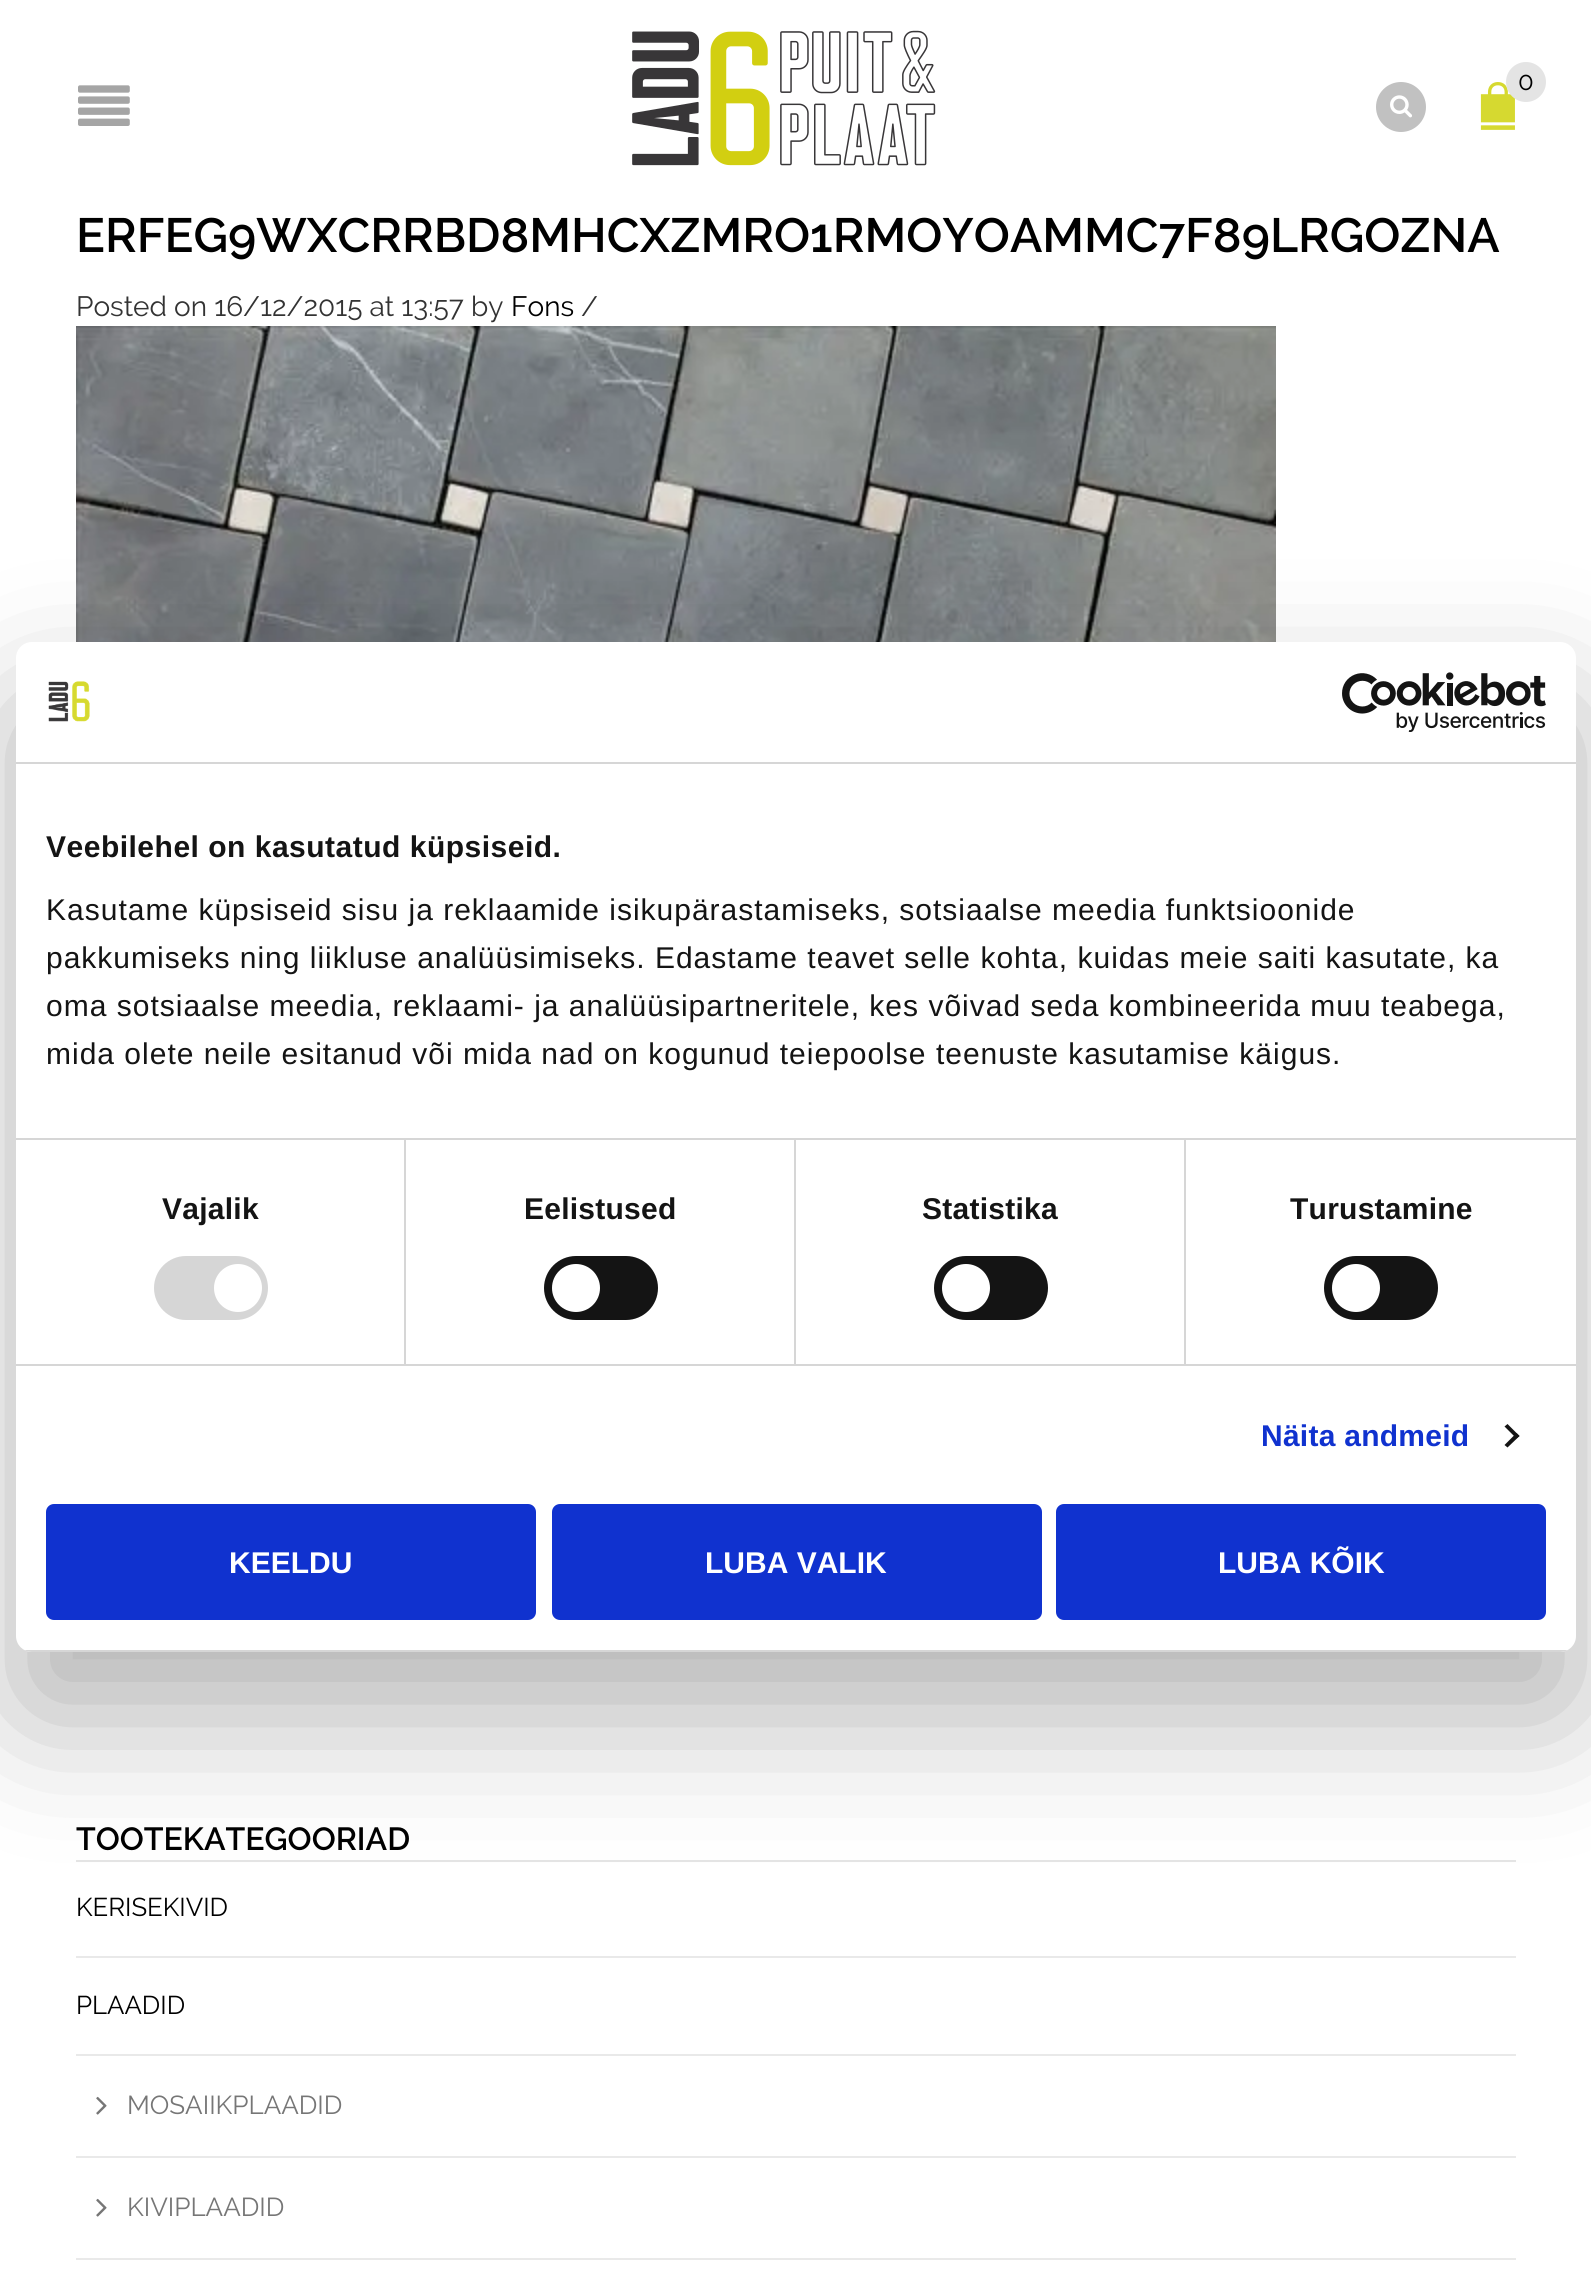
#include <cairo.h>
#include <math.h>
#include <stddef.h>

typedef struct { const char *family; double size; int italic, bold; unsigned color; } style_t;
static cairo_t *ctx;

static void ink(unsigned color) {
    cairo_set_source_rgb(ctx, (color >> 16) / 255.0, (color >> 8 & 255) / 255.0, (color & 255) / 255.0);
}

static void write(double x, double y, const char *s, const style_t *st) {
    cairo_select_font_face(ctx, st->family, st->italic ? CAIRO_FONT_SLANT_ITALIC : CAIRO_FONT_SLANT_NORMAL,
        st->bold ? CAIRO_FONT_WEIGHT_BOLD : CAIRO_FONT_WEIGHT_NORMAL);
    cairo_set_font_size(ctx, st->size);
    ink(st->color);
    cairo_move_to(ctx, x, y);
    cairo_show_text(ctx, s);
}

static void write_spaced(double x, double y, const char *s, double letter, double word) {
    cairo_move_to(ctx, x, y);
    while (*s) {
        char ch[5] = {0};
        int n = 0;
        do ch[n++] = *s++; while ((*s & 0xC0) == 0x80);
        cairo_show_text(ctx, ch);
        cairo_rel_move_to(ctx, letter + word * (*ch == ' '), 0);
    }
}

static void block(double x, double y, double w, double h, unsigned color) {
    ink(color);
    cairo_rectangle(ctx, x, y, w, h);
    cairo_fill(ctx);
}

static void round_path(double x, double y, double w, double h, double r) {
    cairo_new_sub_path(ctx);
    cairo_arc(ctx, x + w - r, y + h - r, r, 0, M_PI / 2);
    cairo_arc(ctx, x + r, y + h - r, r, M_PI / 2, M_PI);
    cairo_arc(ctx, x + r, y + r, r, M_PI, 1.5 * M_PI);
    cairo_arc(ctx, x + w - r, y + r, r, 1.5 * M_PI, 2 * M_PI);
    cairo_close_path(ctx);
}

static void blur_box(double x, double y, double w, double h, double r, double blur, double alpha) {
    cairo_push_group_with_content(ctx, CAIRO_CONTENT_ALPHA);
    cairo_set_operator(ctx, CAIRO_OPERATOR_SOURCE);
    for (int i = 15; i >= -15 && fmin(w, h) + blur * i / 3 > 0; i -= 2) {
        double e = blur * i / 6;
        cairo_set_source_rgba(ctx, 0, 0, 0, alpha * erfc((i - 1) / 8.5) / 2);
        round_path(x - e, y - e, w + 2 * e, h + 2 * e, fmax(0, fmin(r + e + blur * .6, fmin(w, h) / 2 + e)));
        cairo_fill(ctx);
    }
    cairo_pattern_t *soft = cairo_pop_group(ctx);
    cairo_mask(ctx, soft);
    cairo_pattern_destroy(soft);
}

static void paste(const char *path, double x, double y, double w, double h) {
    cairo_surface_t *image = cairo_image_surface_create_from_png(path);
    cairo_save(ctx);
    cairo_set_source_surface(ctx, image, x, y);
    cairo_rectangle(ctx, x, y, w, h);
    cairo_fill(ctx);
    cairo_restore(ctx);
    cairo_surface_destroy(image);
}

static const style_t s1 = {"Raleway", 25.75, 0, 0, 0x000000};
static const style_t s2 = {"Raleway SemiBold", 48, 0, 0, 0x000000};
static const style_t s3 = {"Raleway", 28, 0, 0, 0x333333};
static const style_t s4 = {"Raleway", 28, 0, 0, 0x000000};
static const style_t s5 = {"Raleway SemiBold", 32, 0, 0, 0x000000};
static const style_t s6 = {"Raleway", 26, 0, 0, 0x767676};
static const style_t s7 = {"Liberation Sans", 30, 0, 1, 0xffffff};

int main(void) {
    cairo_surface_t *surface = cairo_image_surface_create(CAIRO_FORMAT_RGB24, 1591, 2293);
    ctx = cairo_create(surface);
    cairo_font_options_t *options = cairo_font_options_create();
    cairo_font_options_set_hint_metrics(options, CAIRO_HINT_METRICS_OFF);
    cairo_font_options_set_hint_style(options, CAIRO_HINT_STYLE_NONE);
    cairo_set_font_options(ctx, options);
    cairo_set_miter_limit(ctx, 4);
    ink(0xffffff);
    cairo_paint(ctx);
    paste("pic1.png", 632, 30, 304, 136);
    ink(0xc1c1c1);
    cairo_arc(ctx, 1401, 107, 25, 0, 2 * M_PI);
    cairo_fill(ctx);
    paste("pic2.png", 1390, 95, 22, 23);
    paste("pic3.png", 1480, 82, 35, 48);
    ink(0xe4e4e4);
    cairo_arc(ctx, 1526, 82, 20, 0, 2 * M_PI);
    cairo_fill(ctx);
    write(1518, 90, "0", &s1);
    paste("pic4.png", 78, 85, 52, 41);
    write(76, 252, "ERFEG9WXCRRBD8MHCXZMRO1RMOYOAMMC7F89LRGOZNA", &s2);
    write(76, 316, "Posted on 16/12/2015 at 13:57 by", &s3);
    write(511, 316, "Fons", &s4);
    write(581, 316, "/", &s3);
    paste("pic5.png", 76, 326, 1200, 316);
    write(76, 1850, "TOOTEKATEGOORIAD", &s5);
    block(76, 1860, 1440, 2, 0xe5e5e5);
    block(76, 1956, 1440, 2, 0xe9e9e9);
    write(76, 1916, "KERISEKIVID", &s1);
    write(76, 2014, "PLAADID", &s1);
    block(76, 2054, 1440, 2, 0xe9e9e9);
    paste("pic6.png", 96, 2096, 11, 19);
    write(127, 2114, "MOSAIIKPLAADID", &s6);
    block(76, 2156, 1440, 2, 0xe9e9e9);
    paste("pic6.png", 96, 2198, 11, 19);
    write(127, 2216, "KIVIPLAADID", &s6);
    block(76, 2258, 1440, 2, 0xe9e9e9);
    ink(0x000000);
    blur_box(16, 706, 1560, 1010, 16, 68, 0.3);
    ink(0xffffff);
    round_path(16, 642, 1560, 1010, 16);
    cairo_fill(ctx);
    block(16, 762, 1560, 2, 0xd6d6d6);
    paste("pic7.png", 48, 681, 42, 41);
    paste("pic8.png", 1342, 672, 204, 60);
    block(16, 1138, 1560, 2, 0xd6d6d6);
    cairo_select_font_face(ctx, "Liberation Sans", CAIRO_FONT_SLANT_NORMAL, CAIRO_FONT_WEIGHT_BOLD);
    cairo_set_font_size(ctx, 30);
    ink(0x141414);
    write_spaced(46, 857, "Veebilehel on kasutatud küpsiseid.", 0.5, 0);
    cairo_select_font_face(ctx, "Liberation Sans", CAIRO_FONT_SLANT_NORMAL, CAIRO_FONT_WEIGHT_NORMAL);
    write_spaced(46, 920, "Kasutame küpsiseid sisu ja reklaamide isikupärastamiseks, sotsiaalse meedia funktsioonide", 1, 0);
    write_spaced(46, 968, "pakkumiseks ning liikluse analüüsimiseks. Edastame teavet selle kohta, kuidas meie saiti kasutate, ka", 1, 0);
    write_spaced(46, 1016, "oma sotsiaalse meedia, reklaami- ja analüüsipartneritele, kes võivad seda kombineerida muu teabega,", 1, 0);
    write_spaced(46, 1064, "mida olete neile esitanud või mida nad on kogunud teiepoolse teenuste kasutamise käigus.", 1, 0);
    block(16, 1364, 1560, 2, 0xd6d6d6);
    block(404, 1140, 2, 224, 0xd6d6d6);
    cairo_select_font_face(ctx, "Liberation Sans", CAIRO_FONT_SLANT_NORMAL, CAIRO_FONT_WEIGHT_BOLD);
    ink(0x141414);
    write_spaced(162, 1219, "Vajalik", 0.25, 0);
    ink(0xd6d6d6);
    round_path(154, 1256, 114, 64, 32);
    cairo_fill(ctx);
    ink(0xffffff);
    cairo_arc(ctx, 238, 1288, 24, 0, 2 * M_PI);
    cairo_fill(ctx);
    block(794, 1140, 2, 224, 0xd6d6d6);
    ink(0x141414);
    write_spaced(524, 1219, "Eelistused", 0.25, 0);
    round_path(544, 1256, 114, 64, 32);
    cairo_fill(ctx);
    ink(0xffffff);
    cairo_arc(ctx, 576, 1288, 24, 0, 2 * M_PI);
    cairo_fill(ctx);
    block(1184, 1140, 2, 224, 0xd6d6d6);
    ink(0x141414);
    write_spaced(922, 1219, "Statistika", 0.25, 0);
    round_path(934, 1256, 114, 64, 32);
    cairo_fill(ctx);
    ink(0xffffff);
    cairo_arc(ctx, 966, 1288, 24, 0, 2 * M_PI);
    cairo_fill(ctx);
    ink(0x141414);
    write_spaced(1290, 1219, "Turustamine", 0.25, 0);
    round_path(1324, 1256, 114, 64, 32);
    cairo_fill(ctx);
    ink(0xffffff);
    cairo_arc(ctx, 1356, 1288, 24, 0, 2 * M_PI);
    cairo_fill(ctx);
    ink(0x1032cf);
    write_spaced(1261, 1446, "Näita andmeid", 0.25, 0);
    ink(0x141414);
    cairo_new_path(ctx);
    cairo_move_to(ctx, 1507.5, 1424);
    cairo_line_to(ctx, 1519.5, 1436);
    cairo_line_to(ctx, 1516.5, 1438.5);
    cairo_line_to(ctx, 1504.5, 1426.5);
    cairo_close_path(ctx);
    cairo_fill(ctx);
    cairo_new_path(ctx);
    cairo_move_to(ctx, 1516.5, 1433);
    cairo_line_to(ctx, 1519.5, 1436);
    cairo_line_to(ctx, 1507.5, 1447.5);
    cairo_line_to(ctx, 1504.5, 1445);
    cairo_close_path(ctx);
    cairo_fill(ctx);
    cairo_save(ctx);
    round_path(16, 642, 1560, 1010, 16);
    cairo_clip(ctx);
    block(16, 1650, 1560, 2, 0xd6d6d6);
    cairo_restore(ctx);
    ink(0x1032cf);
    round_path(48, 1506, 486, 112, 6);
    cairo_fill_preserve(ctx);
    cairo_set_line_width(ctx, 4);
    cairo_stroke(ctx);
    write(229, 1573, "KEELDU", &s7);
    ink(0x1032cf);
    round_path(554, 1506, 486, 112, 6);
    cairo_fill_preserve(ctx);
    cairo_stroke(ctx);
    write(705, 1573, "LUBA VALIK", &s7);
    ink(0x1032cf);
    round_path(1058, 1506, 486, 112, 6);
    cairo_fill_preserve(ctx);
    cairo_stroke(ctx);
    write(1218, 1573, "LUBA KÕIK", &s7);
    cairo_surface_write_to_png(surface, "screenshot.png");
    cairo_font_options_destroy(options);
    cairo_destroy(ctx);
    cairo_surface_destroy(surface);
    return 0;
}
